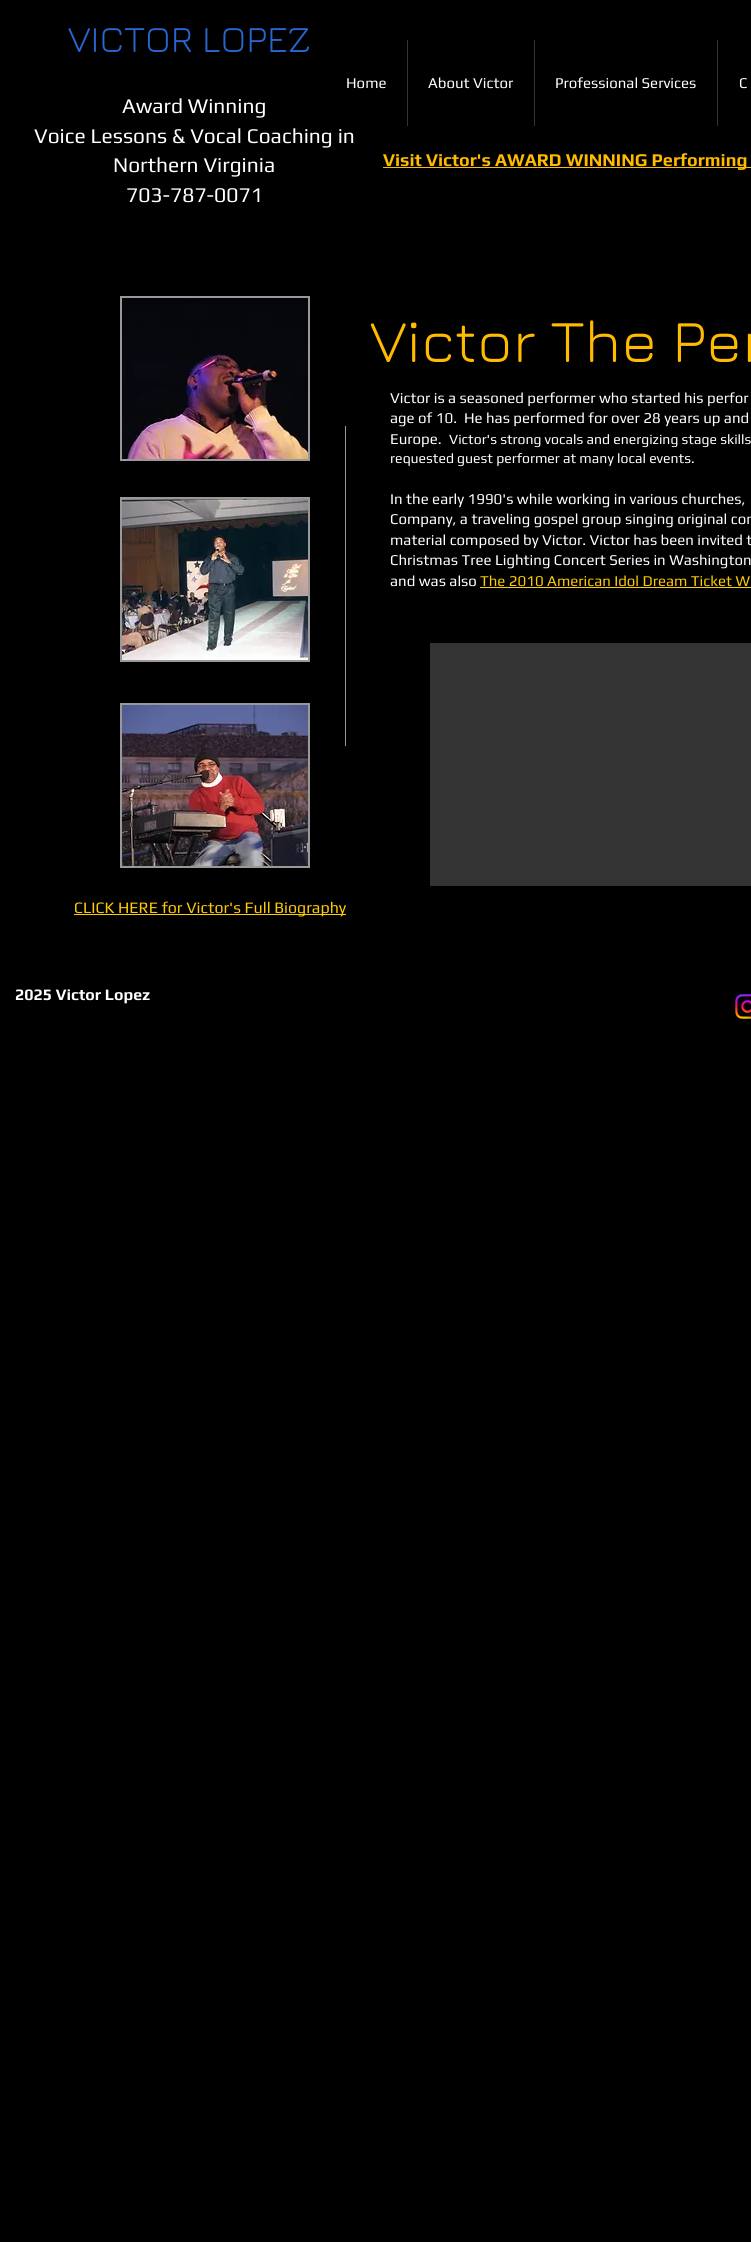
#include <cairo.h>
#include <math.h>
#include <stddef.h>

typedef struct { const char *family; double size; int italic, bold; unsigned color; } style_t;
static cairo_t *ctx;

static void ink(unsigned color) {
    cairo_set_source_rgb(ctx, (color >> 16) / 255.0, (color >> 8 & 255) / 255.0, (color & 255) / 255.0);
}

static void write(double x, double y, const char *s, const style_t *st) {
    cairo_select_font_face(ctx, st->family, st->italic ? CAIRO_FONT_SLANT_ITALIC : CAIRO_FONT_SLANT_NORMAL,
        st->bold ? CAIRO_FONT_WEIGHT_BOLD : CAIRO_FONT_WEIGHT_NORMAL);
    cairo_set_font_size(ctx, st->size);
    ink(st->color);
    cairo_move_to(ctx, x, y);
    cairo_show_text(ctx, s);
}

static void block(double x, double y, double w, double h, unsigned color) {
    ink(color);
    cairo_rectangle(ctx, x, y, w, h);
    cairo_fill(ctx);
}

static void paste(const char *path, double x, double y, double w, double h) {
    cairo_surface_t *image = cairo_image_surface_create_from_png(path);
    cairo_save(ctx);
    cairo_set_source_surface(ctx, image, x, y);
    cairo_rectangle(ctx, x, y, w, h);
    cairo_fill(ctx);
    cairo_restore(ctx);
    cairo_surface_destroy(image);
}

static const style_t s1 = {"Jura", 37, 0, 0, 0x2964d1};
static const style_t s2 = {"Play", 21, 0, 0, 0xffffff};
static const style_t s3 = {"Play", 15, 0, 0, 0xffffff};
static const style_t s4 = {"Play", 18, 0, 1, 0xffbb00};
static const style_t s5 = {"Jura", 60, 0, 0, 0xffbb00};
static const style_t s6 = {"Play", 14, 0, 0, 0xffffff};
static const style_t s7 = {"Play", 15, 0, 0, 0xffcb05};
static const style_t s8 = {"Play", 16, 0, 0, 0xffcb05};
static const style_t s9 = {"Play", 16, 0, 1, 0xffffff};

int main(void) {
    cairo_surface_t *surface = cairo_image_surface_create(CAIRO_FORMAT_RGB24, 751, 2242);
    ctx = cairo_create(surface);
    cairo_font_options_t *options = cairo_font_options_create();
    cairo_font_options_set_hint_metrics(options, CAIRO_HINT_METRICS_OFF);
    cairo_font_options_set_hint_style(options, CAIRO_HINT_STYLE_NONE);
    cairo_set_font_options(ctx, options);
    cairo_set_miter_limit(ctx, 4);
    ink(0x000000);
    cairo_paint(ctx);
    write(68, 52, "VICTOR LOPEZ", &s1);
    write(122, 113, "Award Winning", &s2);
    write(34, 143, "Voice Lessons & Vocal Coaching in", &s2);
    write(113, 172, "Northern Virginia", &s2);
    write(126, 202, "703-787-0071", &s2);
    write(346, 88, "Home", &s3);
    block(407, 40, 1, 86, 0x333333);
    write(428, 88, "About Victor", &s3);
    block(534, 40, 1, 86, 0x333333);
    write(555, 88, "Professional Services", &s3);
    block(717, 40, 1, 86, 0x333333);
    write(739, 88, "C", &s3);
    block(383, 167, 368, 1, 0xffbb00);
    write(383, 166, "Visit Victor's AWARD WINNING Performing", &s4);
    block(120, 296, 190, 165, 0x999999);
    paste("pic1.png", 122, 298, 186, 161);
    write(370, 362, "Victor The Per", &s5);
    block(120, 497, 190, 165, 0x999999);
    paste("pic2.png", 122, 499, 186, 161);
    block(345, 426, 1, 320, 0x999999);
    write(390, 403, "Victor is a seasoned performer who started his perfor", &s3);
    write(390, 423, "age of 10.  He has performed for over 28 years up and", &s3);
    write(390, 444, "Europe.", &s3);
    write(449, 444, "Victor's strong vocals and energizing stage skills", &s6);
    write(390, 463, "requested guest performer at many local events.", &s6);
    write(390, 504, "In the early 1990's while working in various churches,", &s3);
    write(390, 524, "Company, a traveling gospel group singing original con", &s3);
    write(390, 545, "material composed by Victor. Victor has been invited t", &s3);
    write(390, 565, "Christmas Tree Lighting Concert Series in Washington", &s3);
    write(390, 586, "and was also", &s3);
    write(480, 586, "The 2010 American Idol Dream Ticket W", &s7);
    block(480, 587, 271, 1, 0xffcb05);
    block(120, 703, 190, 165, 0x999999);
    paste("pic3.png", 122, 705, 186, 161);
    block(430, 643, 321, 243, 0x333333);
    block(74, 914, 272, 1, 0xffcb05);
    write(74, 913, "CLICK HERE for Victor's Full Biography", &s8);
    write(15, 1000, "2025 Victor Lopez", &s9);
    paste("pic4.png", 735, 994, 16, 25);
    cairo_surface_write_to_png(surface, "screenshot.png");
    cairo_font_options_destroy(options);
    cairo_destroy(ctx);
    cairo_surface_destroy(surface);
    return 0;
}
